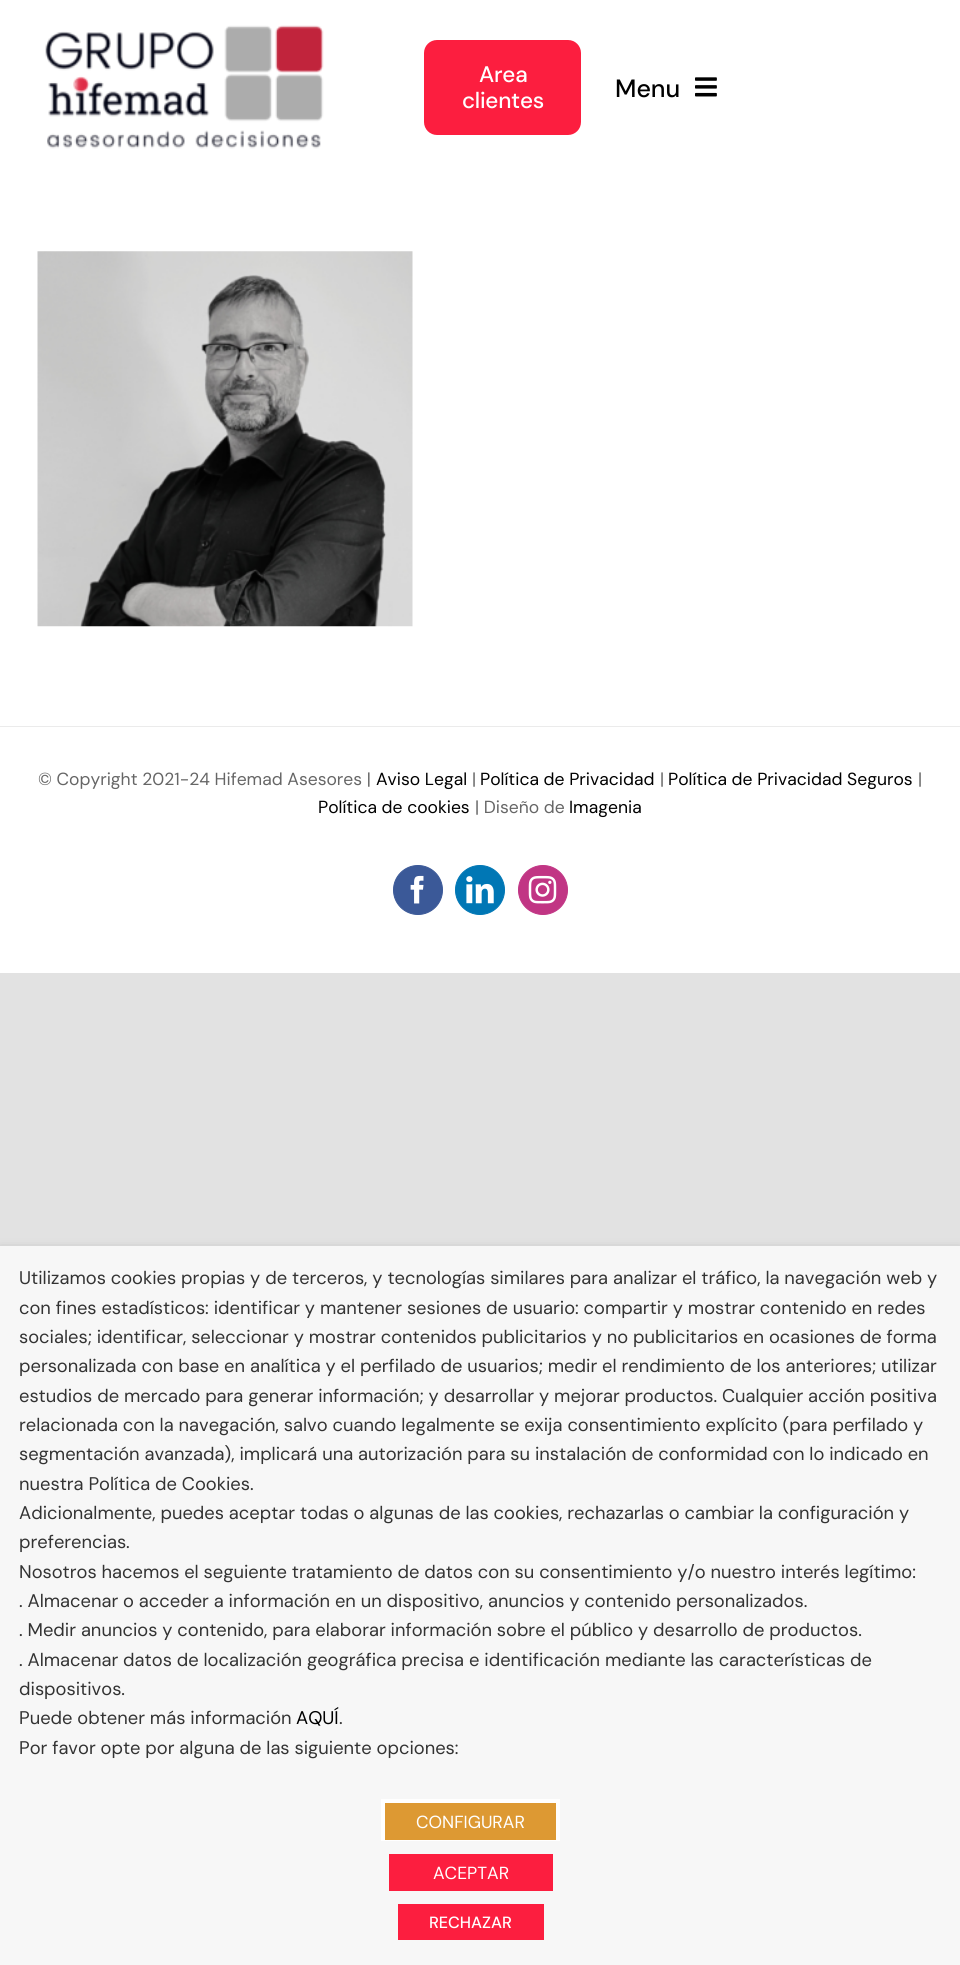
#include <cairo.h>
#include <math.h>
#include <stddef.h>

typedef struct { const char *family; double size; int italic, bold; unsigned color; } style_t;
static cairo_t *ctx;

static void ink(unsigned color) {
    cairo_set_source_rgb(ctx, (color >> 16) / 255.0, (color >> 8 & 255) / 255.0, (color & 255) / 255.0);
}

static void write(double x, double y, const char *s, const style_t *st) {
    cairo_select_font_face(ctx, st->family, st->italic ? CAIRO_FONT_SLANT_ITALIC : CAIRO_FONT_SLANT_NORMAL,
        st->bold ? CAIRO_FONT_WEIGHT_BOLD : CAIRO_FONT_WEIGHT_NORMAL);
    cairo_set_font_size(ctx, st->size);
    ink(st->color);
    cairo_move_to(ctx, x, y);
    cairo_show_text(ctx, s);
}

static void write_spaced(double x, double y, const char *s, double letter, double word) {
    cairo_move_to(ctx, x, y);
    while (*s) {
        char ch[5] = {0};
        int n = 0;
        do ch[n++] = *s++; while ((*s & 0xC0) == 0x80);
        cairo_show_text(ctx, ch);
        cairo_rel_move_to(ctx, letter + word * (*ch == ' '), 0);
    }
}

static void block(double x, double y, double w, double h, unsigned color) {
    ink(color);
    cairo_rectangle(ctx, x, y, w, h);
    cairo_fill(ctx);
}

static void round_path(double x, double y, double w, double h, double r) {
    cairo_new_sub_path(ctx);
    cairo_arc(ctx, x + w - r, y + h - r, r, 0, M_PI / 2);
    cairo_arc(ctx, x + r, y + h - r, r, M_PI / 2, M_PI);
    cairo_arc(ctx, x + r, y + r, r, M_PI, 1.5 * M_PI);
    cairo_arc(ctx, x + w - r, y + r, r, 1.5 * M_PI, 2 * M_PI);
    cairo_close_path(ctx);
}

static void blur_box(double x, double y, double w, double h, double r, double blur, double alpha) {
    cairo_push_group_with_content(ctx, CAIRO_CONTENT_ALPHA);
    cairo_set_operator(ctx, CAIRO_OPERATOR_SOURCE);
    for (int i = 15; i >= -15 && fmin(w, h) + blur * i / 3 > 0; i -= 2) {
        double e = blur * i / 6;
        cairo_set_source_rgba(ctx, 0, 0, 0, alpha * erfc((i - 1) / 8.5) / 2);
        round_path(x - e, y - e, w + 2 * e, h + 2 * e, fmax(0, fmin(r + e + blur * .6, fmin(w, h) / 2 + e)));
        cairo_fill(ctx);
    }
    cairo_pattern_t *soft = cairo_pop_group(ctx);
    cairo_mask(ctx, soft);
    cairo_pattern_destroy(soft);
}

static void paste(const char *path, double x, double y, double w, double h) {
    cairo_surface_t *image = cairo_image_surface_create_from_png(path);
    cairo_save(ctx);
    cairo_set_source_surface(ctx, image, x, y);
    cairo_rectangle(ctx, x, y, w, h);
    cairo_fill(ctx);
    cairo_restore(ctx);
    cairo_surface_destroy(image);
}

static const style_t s1 = {"DM Sans Medium", 25, 0, 0, 0x000000};
static const style_t s2 = {"DM Sans", 17.5, 0, 0, 0x666666};
static const style_t s3 = {"DM Sans", 17.5, 0, 0, 0x000000};
static const style_t s4 = {"DM Sans", 18.33, 0, 0, 0x333333};
static const style_t s5 = {"DM Sans", 18.33, 0, 0, 0x000000};
static const style_t s6 = {"DM Sans", 17.5, 0, 0, 0xffffff};
static const style_t s7 = {"DM Sans Medium", 16.25, 0, 0, 0xffffff};

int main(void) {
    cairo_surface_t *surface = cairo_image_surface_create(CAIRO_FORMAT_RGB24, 960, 1965);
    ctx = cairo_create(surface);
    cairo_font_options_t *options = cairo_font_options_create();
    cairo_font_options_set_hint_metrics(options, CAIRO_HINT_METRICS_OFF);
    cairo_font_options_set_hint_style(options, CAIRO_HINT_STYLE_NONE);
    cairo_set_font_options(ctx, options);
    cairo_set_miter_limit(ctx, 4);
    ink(0xe2e2e2);
    cairo_paint(ctx);
    block(0, 0, 960, 973, 0xffffff);
    paste("pic1.png", 45, 25, 279, 124);
    ink(0xfc1e3f);
    round_path(424, 40, 157, 95, 13);
    cairo_fill(ctx);
    cairo_select_font_face(ctx, "DM Sans Medium", CAIRO_FONT_SLANT_NORMAL, CAIRO_FONT_WEIGHT_NORMAL);
    cairo_set_font_size(ctx, 22.5);
    ink(0xffffff);
    write_spaced(479, 82, "Area", -0.25, 0);
    write_spaced(462, 108, "clientes", -0.25, 0);
    write(615, 97, "Menu", &s1);
    paste("pic2.png", 695, 77, 22, 20);
    paste("pic3.png", 37, 251, 376, 376);
    block(0, 726, 960, 1, 0xebebeb);
    write(38, 785, "© Copyright 2021-24 Hifemad Asesores |", &s2);
    write(376, 785, "Aviso Legal", &s3);
    write(472, 785, "|", &s2);
    write(480, 785, "Política de Privacidad", &s3);
    write(660, 785, "|", &s2);
    write(668, 785, "Política de Privacidad Seguros", &s3);
    write(918, 785, "|", &s2);
    write(318, 813, "Política de cookies", &s3);
    write(475, 813, "| Diseño de", &s2);
    write(569, 813, "Imagenia", &s3);
    ink(0x3b5998);
    cairo_new_path(ctx);
    cairo_arc(ctx, 418, 890, 24.5, 0, 2 * M_PI);
    cairo_fill_preserve(ctx);
    cairo_set_line_width(ctx, 1);
    cairo_stroke(ctx);
    paste("pic4.png", 410, 875, 14, 29);
    ink(0x0077b5);
    cairo_arc(ctx, 480, 890, 24.5, 0, 2 * M_PI);
    cairo_fill_preserve(ctx);
    cairo_stroke(ctx);
    paste("pic5.png", 466, 876, 28, 28);
    ink(0xc13584);
    cairo_arc(ctx, 543, 890, 24.5, 0, 2 * M_PI);
    cairo_fill_preserve(ctx);
    cairo_stroke(ctx);
    paste("pic6.png", 528, 875, 29, 29);
    ink(0x000000);
    blur_box(0, 1253, 960, 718, 0, 6, 0.5);
    block(0, 1246, 960, 719, 0xf7f7f7);
    write(19, 1284, "Utilizamos cookies propias y de terceros, y tecnologías similares para analizar el tráfico, la navegación web y", &s4);
    write(19, 1314, "con fines estadísticos: identificar y mantener sesiones de usuario: compartir y mostrar contenido en redes", &s4);
    write(19, 1343, "sociales; identificar, seleccionar y mostrar contenidos publicitarios y no publicitarios en ocasiones de forma", &s4);
    write(19, 1372, "personalizada con base en analítica y el perfilado de usuarios; medir el rendimiento de los anteriores; utilizar", &s4);
    write(19, 1402, "estudios de mercado para generar información; y desarrollar y mejorar productos. Cualquier acción positiva", &s4);
    write(19, 1431, "relacionada con la navegación, salvo cuando legalmente se exija consentimiento explícito (para perfilado y", &s4);
    write(19, 1460, "segmentación avanzada), implicará una autorización para su instalación de conformidad con lo indicado en", &s4);
    write(19, 1490, "nuestra Política de Cookies.", &s4);
    write(19, 1519, "Adicionalmente, puedes aceptar todas o algunas de las cookies, rechazarlas o cambiar la configuración y", &s4);
    write(19, 1548, "preferencias.", &s4);
    write(19, 1578, "Nosotros hacemos el seguiente tratamiento de datos con su consentimiento y/o nuestro interés legítimo:", &s4);
    write(19, 1607, ". Almacenar o acceder a información en un dispositivo, anuncios y contenido personalizados.", &s4);
    write(19, 1636, ". Medir anuncios y contenido, para elaborar información sobre el público y desarrollo de productos.", &s4);
    write(19, 1666, ". Almacenar datos de localización geográfica precisa e identificación mediante las características de", &s4);
    write(19, 1695, "dispositivos.", &s4);
    write(19, 1724, "Puede obtener más información", &s4);
    write(296, 1724, "AQUÍ", &s5);
    write(339, 1724, ".", &s4);
    write(19, 1754, "Por favor opte por alguna de las siguiente opciones:", &s4);
    block(385, 1803, 171, 37, 0xdd9933);
    block(381, 1799, 179, 4, 0xffffff);
    block(556, 1799, 4, 42, 0xffffff);
    block(381, 1840, 179, 1, 0xffffff);
    block(381, 1799, 4, 42, 0xffffff);
    write(416, 1828, "CONFIGURAR", &s6);
    block(389, 1854, 164, 37, 0xfc1e3f);
    write(433, 1879, "ACEPTAR", &s6);
    block(398, 1904, 146, 36, 0xfc1e3f);
    write(429, 1928, "RECHAZAR", &s7);
    cairo_surface_write_to_png(surface, "screenshot.png");
    cairo_font_options_destroy(options);
    cairo_destroy(ctx);
    cairo_surface_destroy(surface);
    return 0;
}
